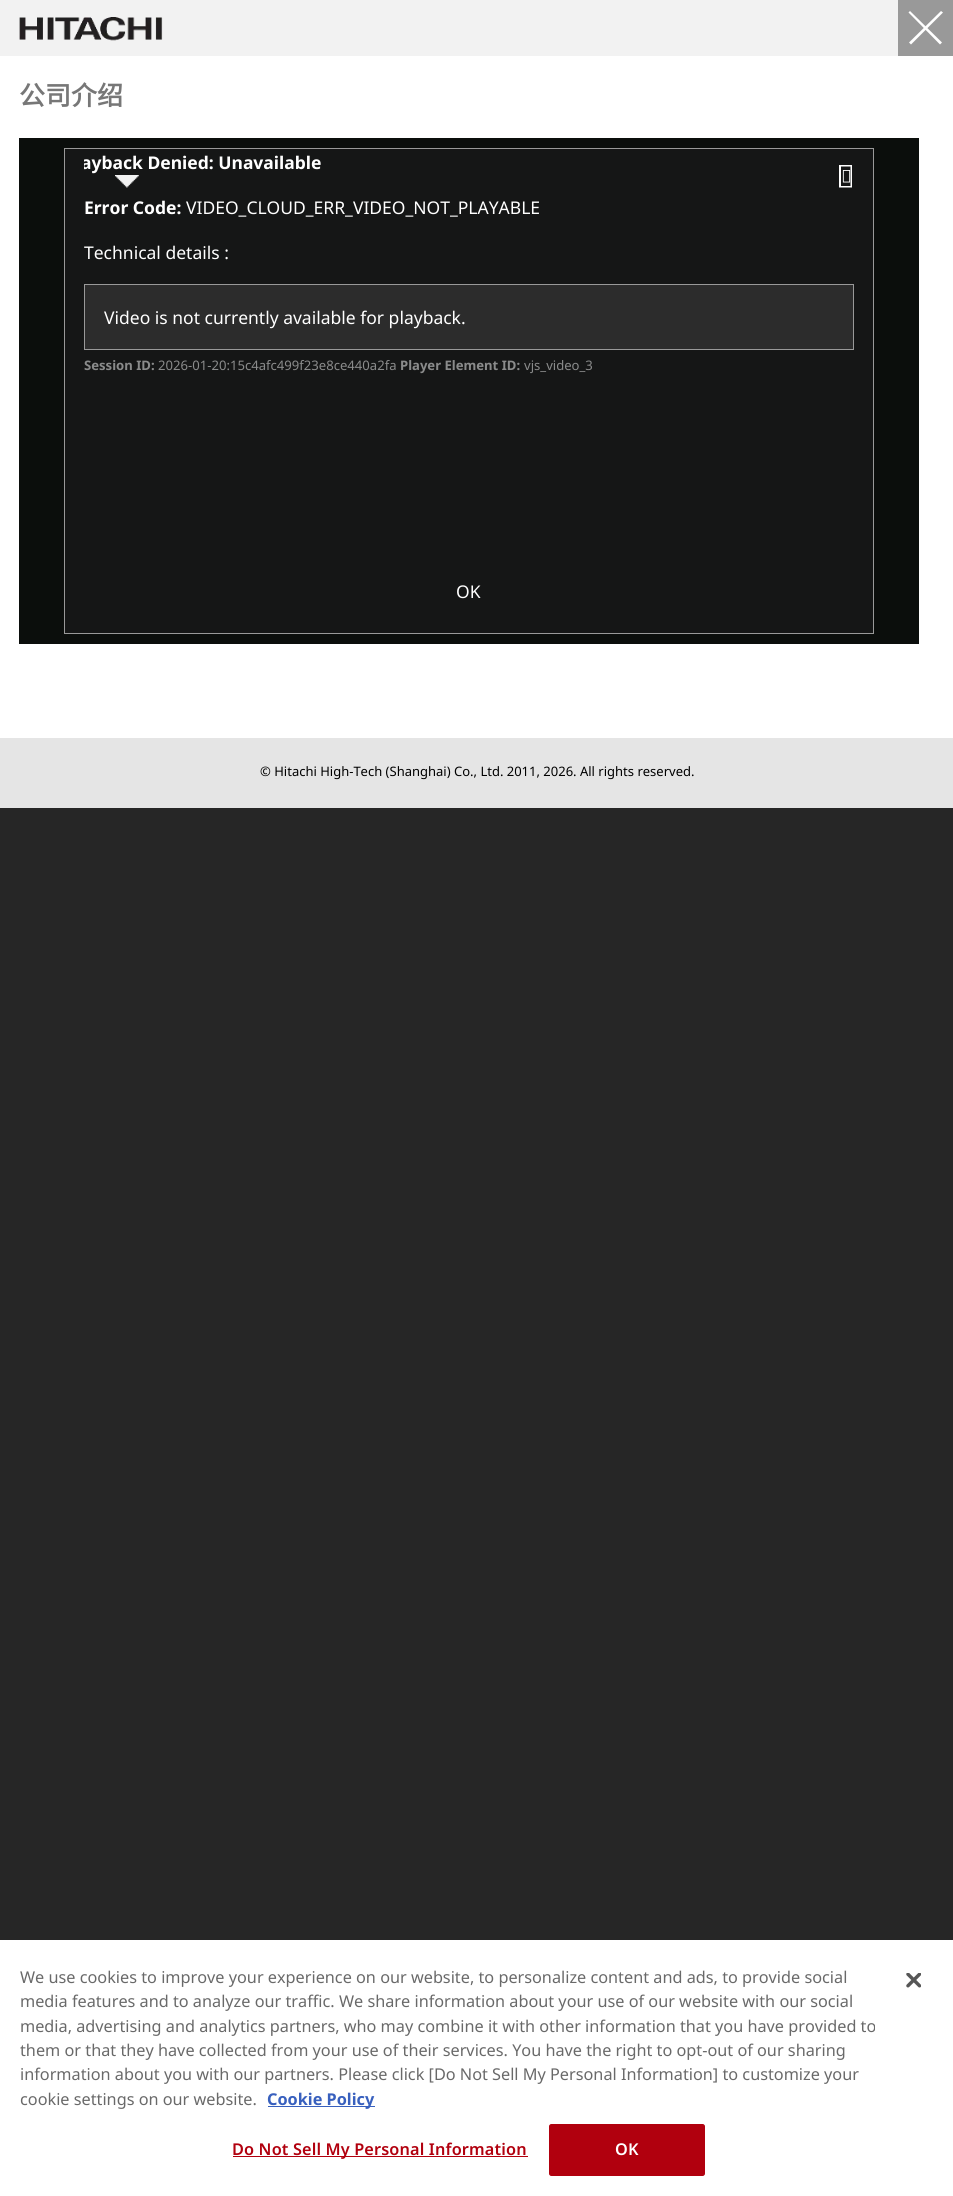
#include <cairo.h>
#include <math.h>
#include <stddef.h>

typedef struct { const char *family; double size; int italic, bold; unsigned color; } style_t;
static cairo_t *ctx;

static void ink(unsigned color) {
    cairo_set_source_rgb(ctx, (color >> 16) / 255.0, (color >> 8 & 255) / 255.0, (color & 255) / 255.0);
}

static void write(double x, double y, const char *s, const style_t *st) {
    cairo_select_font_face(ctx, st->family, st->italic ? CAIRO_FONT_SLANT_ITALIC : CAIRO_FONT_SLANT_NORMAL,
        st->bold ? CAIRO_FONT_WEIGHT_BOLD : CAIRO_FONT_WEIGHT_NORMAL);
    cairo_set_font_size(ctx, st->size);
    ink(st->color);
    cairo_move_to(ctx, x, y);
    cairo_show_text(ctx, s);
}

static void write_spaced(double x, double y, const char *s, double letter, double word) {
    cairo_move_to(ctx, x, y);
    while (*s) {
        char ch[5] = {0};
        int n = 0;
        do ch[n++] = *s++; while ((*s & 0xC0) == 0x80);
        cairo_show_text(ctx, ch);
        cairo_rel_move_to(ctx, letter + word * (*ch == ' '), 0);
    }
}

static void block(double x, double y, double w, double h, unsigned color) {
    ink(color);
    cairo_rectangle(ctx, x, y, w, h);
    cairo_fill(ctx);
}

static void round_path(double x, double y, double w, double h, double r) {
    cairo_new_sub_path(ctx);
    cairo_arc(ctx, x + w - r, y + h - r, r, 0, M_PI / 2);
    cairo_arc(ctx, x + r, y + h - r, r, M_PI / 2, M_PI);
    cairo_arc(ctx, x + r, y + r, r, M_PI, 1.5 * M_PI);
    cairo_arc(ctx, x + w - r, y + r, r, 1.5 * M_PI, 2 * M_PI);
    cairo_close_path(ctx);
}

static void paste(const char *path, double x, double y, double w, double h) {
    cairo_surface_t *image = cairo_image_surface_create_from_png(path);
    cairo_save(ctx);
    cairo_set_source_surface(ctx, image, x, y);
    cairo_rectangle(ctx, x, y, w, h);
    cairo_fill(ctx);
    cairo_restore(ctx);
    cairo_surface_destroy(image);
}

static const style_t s1 = {"Noto Sans CJK SC", 26, 0, 1, 0x777777};
static const style_t s2 = {"Noto Sans", 17.5, 0, 1, 0xffffff};
static const style_t s3 = {"Noto Sans", 17.5, 0, 0, 0xffffff};
static const style_t s4 = {"Noto Sans", 13.1, 0, 1, 0x8a8b8b};
static const style_t s5 = {"Noto Sans", 13.1, 0, 0, 0x8a8b8b};
static const style_t s6 = {"Noto Sans", 13, 0, 0, 0x000000};
static const style_t s7 = {"Noto Sans", 16.25, 0, 0, 0x696969};
static const style_t s8 = {"Noto Sans", 16.25, 0, 1, 0x3860be};

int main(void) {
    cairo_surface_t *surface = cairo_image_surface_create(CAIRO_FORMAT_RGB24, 953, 2196);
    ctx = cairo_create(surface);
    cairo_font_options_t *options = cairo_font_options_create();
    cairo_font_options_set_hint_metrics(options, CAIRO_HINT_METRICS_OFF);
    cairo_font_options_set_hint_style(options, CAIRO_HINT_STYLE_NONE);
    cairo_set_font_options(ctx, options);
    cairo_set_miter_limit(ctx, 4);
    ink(0x262626);
    cairo_paint(ctx);
    block(0, 0, 898, 56, 0xf2f2f2);
    paste("pic1.png", 19, 17, 144, 24);
    block(898, 0, 55, 56, 0x999999);
    ink(0xffffff);
    cairo_new_path(ctx);
    cairo_move_to(ctx, 910, 11);
    cairo_line_to(ctx, 942, 42.5);
    cairo_line_to(ctx, 940, 44.5);
    cairo_line_to(ctx, 908.5, 12.5);
    cairo_close_path(ctx);
    cairo_fill(ctx);
    cairo_new_path(ctx);
    cairo_move_to(ctx, 909, 42.5);
    cairo_line_to(ctx, 941, 11);
    cairo_line_to(ctx, 943, 12.5);
    cairo_line_to(ctx, 911, 44.5);
    cairo_close_path(ctx);
    cairo_fill(ctx);
    block(0, 56, 953, 682, 0xffffff);
    write(19, 105, "公司介绍", &s1);
    block(19, 138, 900, 506, 0x0b0e0c);
    ink(0x151616);
    cairo_rectangle(ctx, 64.5, 148.5, 809, 485);
    cairo_fill_preserve(ctx);
    ink(0x999999);
    cairo_set_line_width(ctx, 1);
    cairo_stroke(ctx);
    paste("pic2.png", 115, 175, 24, 13);
    cairo_save(ctx);
    cairo_rectangle(ctx, 84, 149, 770, 407);
    cairo_clip(ctx);
    write(81, 169, "ayback Denied: Unavailable", &s2);
    cairo_restore(ctx);
    write(84, 214, "Error Code:", &s2);
    write(186, 214, "VIDEO_CLOUD_ERR_VIDEO_NOT_PLAYABLE", &s3);
    write(84, 259, "Technical details :", &s3);
    ink(0x2c2c2c);
    cairo_rectangle(ctx, 84.5, 284.5, 769, 65);
    cairo_fill_preserve(ctx);
    ink(0x999999);
    cairo_stroke(ctx);
    write(104, 324, "Video is not currently available for playback.", &s3);
    write(84, 370, "Session ID:", &s4);
    write(158, 370, "2026-01-20:15c4afc499f23e8ce440a2fa", &s5);
    write(400, 370, "Player Element ID:", &s4);
    write(524, 370, "vjs_video_3", &s5);
    paste("pic3.png", 842, 170, 9, 13);
    ink(0xffffff);
    cairo_new_path(ctx);
    cairo_move_to(ctx, 839, 187.5);
    cairo_line_to(ctx, 839, 165);
    cairo_line_to(ctx, 852, 165);
    cairo_line_to(ctx, 852, 187.5);
    cairo_close_path(ctx);
    cairo_move_to(ctx, 841, 186);
    cairo_line_to(ctx, 850.5, 186);
    cairo_line_to(ctx, 850.5, 166.5);
    cairo_line_to(ctx, 841, 166.5);
    cairo_close_path(ctx);
    cairo_fill(ctx);
    write(456, 598, "OK", &s3);
    block(0, 738, 953, 70, 0xe5e5e5);
    write(260, 776, "© Hitachi High-Tech (Shanghai) Co., Ltd. 2011, 2026. All rights reserved.", &s6);
    block(0, 1940, 953, 256, 0xffffff);
    write(20, 1983, "We use cookies to improve your experience on our website, to personalize content and ads, to provide social", &s7);
    write(20, 2007, "media features and to analyze our traffic. We share information about your use of our website with our social", &s7);
    write(20, 2032, "media, advertising and analytics partners, who may combine it with other information that you have provided to", &s7);
    write(20, 2056, "them or that they have collected from your use of their services. You have the right to opt-out of our sharing", &s7);
    write(20, 2080, "information about you with our partners. Please click [Do Not Sell My Personal Information] to customize your", &s7);
    write(20, 2105, "cookie settings on our website.", &s7);
    block(268, 2106, 107, 1, 0x3860be);
    write(267, 2105, "Cookie Policy", &s8);
    block(233, 2156, 295, 1, 0xb1000e);
    cairo_select_font_face(ctx, "Noto Sans SemiBold", CAIRO_FONT_SLANT_NORMAL, CAIRO_FONT_WEIGHT_NORMAL);
    write_spaced(232, 2155, "Do Not Sell My Personal Information", 0.15, 0);
    round_path(549.5, 2124.5, 155, 51, 2);
    cairo_fill_preserve(ctx);
    cairo_stroke(ctx);
    ink(0xffffff);
    write_spaced(615, 2155, "OK", 0.15, 0);
    paste("pic4.png", 906, 1973, 15, 15);
    cairo_surface_write_to_png(surface, "screenshot.png");
    cairo_font_options_destroy(options);
    cairo_destroy(ctx);
    cairo_surface_destroy(surface);
    return 0;
}
